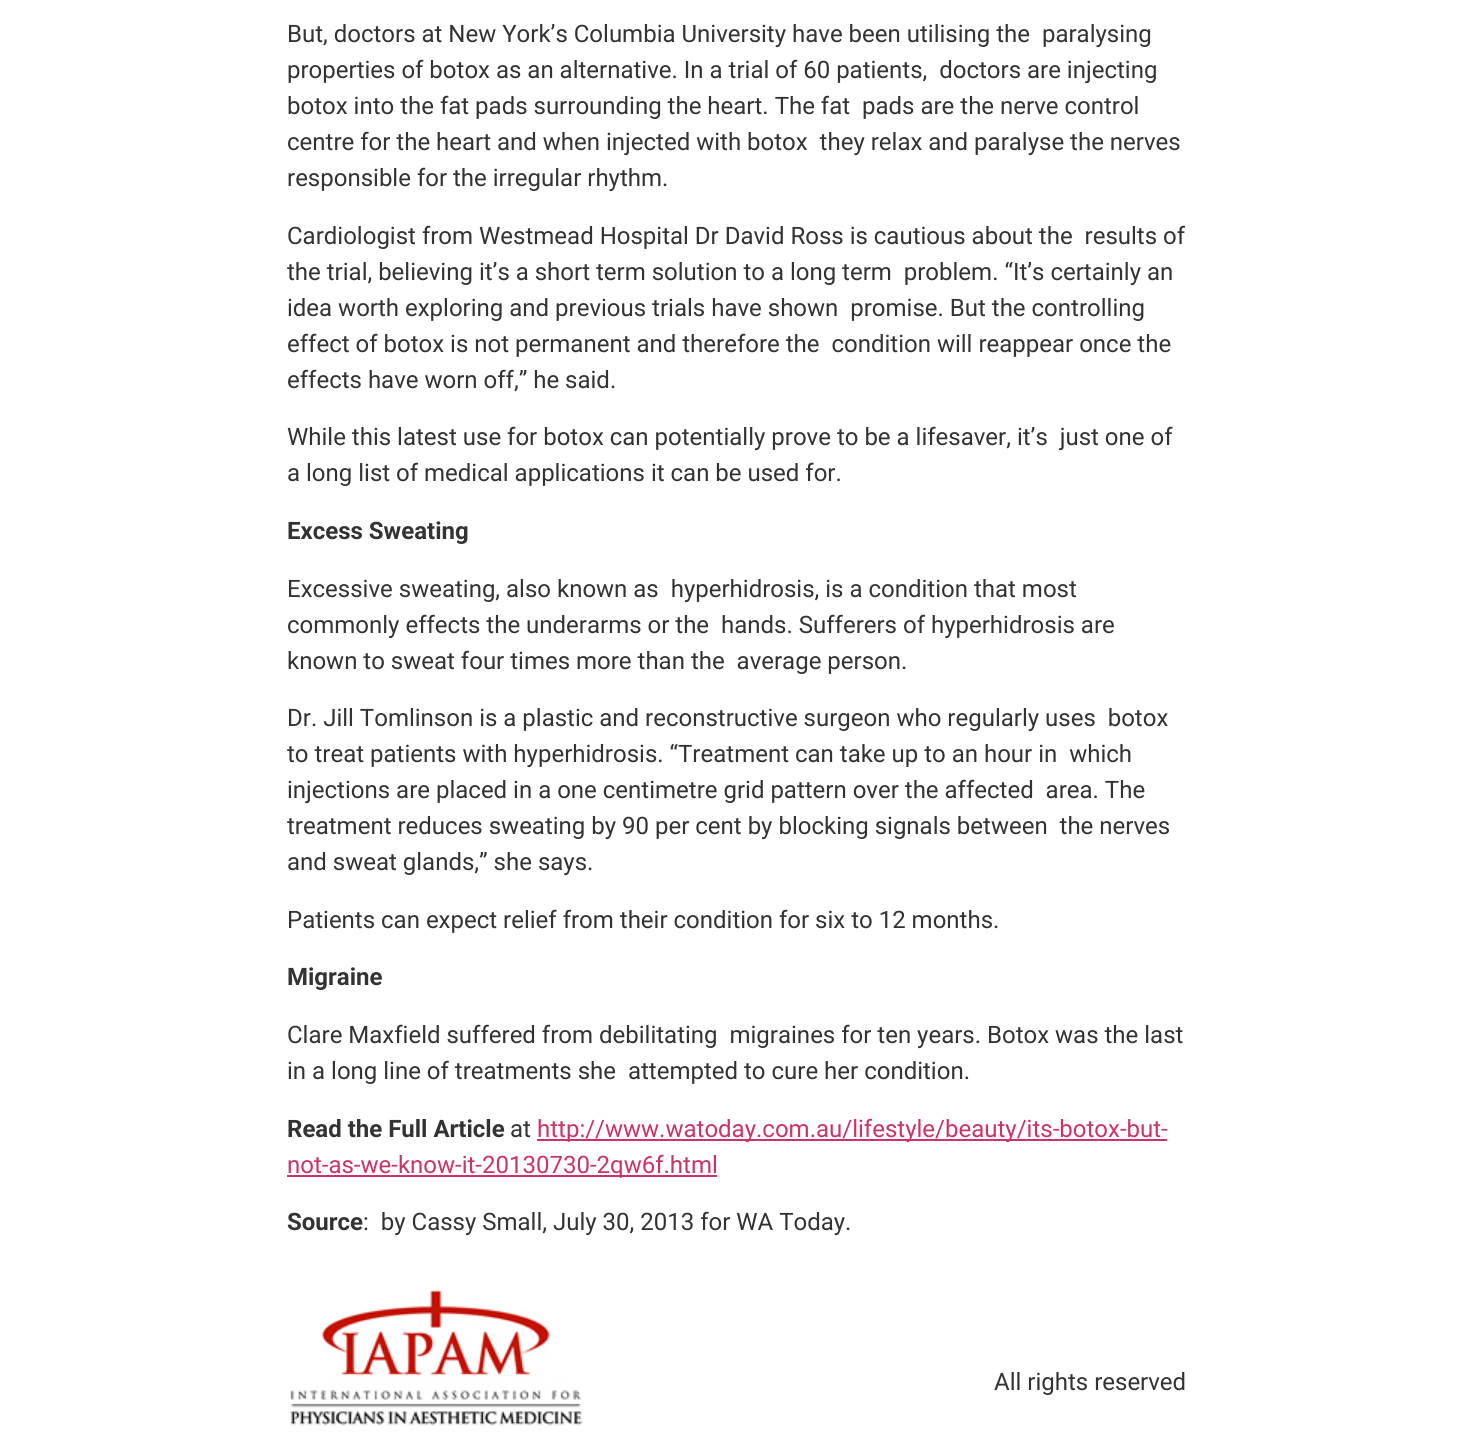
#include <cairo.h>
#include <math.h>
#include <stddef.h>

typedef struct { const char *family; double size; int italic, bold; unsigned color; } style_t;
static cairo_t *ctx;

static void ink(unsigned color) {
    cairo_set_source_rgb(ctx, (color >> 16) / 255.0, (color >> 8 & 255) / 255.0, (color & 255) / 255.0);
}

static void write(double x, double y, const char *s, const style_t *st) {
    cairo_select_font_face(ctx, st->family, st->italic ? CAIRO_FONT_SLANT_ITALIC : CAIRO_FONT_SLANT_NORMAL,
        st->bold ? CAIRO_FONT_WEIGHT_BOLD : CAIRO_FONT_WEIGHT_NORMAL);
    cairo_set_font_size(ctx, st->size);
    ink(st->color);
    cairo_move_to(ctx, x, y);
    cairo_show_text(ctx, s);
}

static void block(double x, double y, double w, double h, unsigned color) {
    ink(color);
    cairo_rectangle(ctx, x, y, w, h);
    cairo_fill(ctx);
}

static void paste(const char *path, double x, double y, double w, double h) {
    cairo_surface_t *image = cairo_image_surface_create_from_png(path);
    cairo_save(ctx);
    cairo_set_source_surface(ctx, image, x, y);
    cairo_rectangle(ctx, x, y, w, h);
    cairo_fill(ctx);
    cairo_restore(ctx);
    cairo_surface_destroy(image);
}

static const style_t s1 = {"Roboto", 24, 0, 0, 0x333333};
static const style_t s2 = {"Roboto", 24, 0, 1, 0x333333};
static const style_t s3 = {"Roboto", 24, 0, 0, 0xcc3366};

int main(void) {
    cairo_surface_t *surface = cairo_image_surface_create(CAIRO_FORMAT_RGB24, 1472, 1432);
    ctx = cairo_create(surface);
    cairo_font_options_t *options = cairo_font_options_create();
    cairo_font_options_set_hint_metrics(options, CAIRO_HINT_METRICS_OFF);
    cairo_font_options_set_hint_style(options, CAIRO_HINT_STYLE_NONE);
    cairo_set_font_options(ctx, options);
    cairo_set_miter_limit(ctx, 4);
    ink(0xffffff);
    cairo_paint(ctx);
    write(287, 42, "But, doctors at New York’s Columbia University have been utilising the  paralysing", &s1);
    write(287, 78, "properties of botox as an alternative. In a trial of 60 patients,  doctors are injecting", &s1);
    write(287, 114, "botox into the fat pads surrounding the heart. The fat  pads are the nerve control", &s1);
    write(287, 150, "centre for the heart and when injected with botox  they relax and paralyse the nerves", &s1);
    write(287, 186, "responsible for the irregular rhythm.", &s1);
    write(287, 244, "Cardiologist from Westmead Hospital Dr David Ross is cautious about the  results of", &s1);
    write(287, 280, "the trial, believing it’s a short term solution to a long term  problem. “It’s certainly an", &s1);
    write(287, 316, "idea worth exploring and previous trials have shown  promise. But the controlling", &s1);
    write(287, 352, "effect of botox is not permanent and therefore the  condition will reappear once the", &s1);
    write(287, 388, "effects have worn off,” he said.", &s1);
    write(287, 445, "While this latest use for botox can potentially prove to be a lifesaver, it’s  just one of", &s1);
    write(287, 481, "a long list of medical applications it can be used for.", &s1);
    write(287, 539, "Excess Sweating", &s2);
    write(287, 597, "Excessive sweating, also known as  hyperhidrosis, is a condition that most", &s1);
    write(287, 633, "commonly effects the underarms or the  hands. Sufferers of hyperhidrosis are", &s1);
    write(287, 669, "known to sweat four times more than the  average person.", &s1);
    write(287, 726, "Dr. Jill Tomlinson is a plastic and reconstructive surgeon who regularly uses  botox", &s1);
    write(287, 762, "to treat patients with hyperhidrosis. “Treatment can take up to an hour in  which", &s1);
    write(287, 798, "injections are placed in a one centimetre grid pattern over the affected  area. The", &s1);
    write(287, 834, "treatment reduces sweating by 90 per cent by blocking signals between  the nerves", &s1);
    write(287, 870, "and sweat glands,” she says.", &s1);
    write(287, 928, "Patients can expect relief from their condition for six to 12 months.", &s1);
    write(287, 985, "Migraine", &s2);
    write(287, 1043, "Clare Maxfield suffered from debilitating  migraines for ten years. Botox was the last", &s1);
    write(287, 1079, "in a long line of treatments she  attempted to cure her condition.", &s1);
    write(287, 1137, "Read the Full Article", &s2);
    write(510, 1137, "at", &s1);
    block(537, 1139, 630, 2, 0xcc3366);
    write(537, 1137, "http://www.watoday.com.au/lifestyle/beauty/its-botox-but-", &s3);
    block(287, 1175, 430, 2, 0xcc3366);
    write(287, 1173, "not-as-we-know-it-20130730-2qw6f.html", &s3);
    write(287, 1230, "Source", &s2);
    write(363, 1230, ":  by Cassy Small, July 30, 2013 for WA Today.", &s1);
    paste("pic1.png", 289, 1289, 294, 137);
    write(994, 1390, "All rights reserved", &s1);
    cairo_surface_write_to_png(surface, "screenshot.png");
    cairo_font_options_destroy(options);
    cairo_destroy(ctx);
    cairo_surface_destroy(surface);
    return 0;
}
